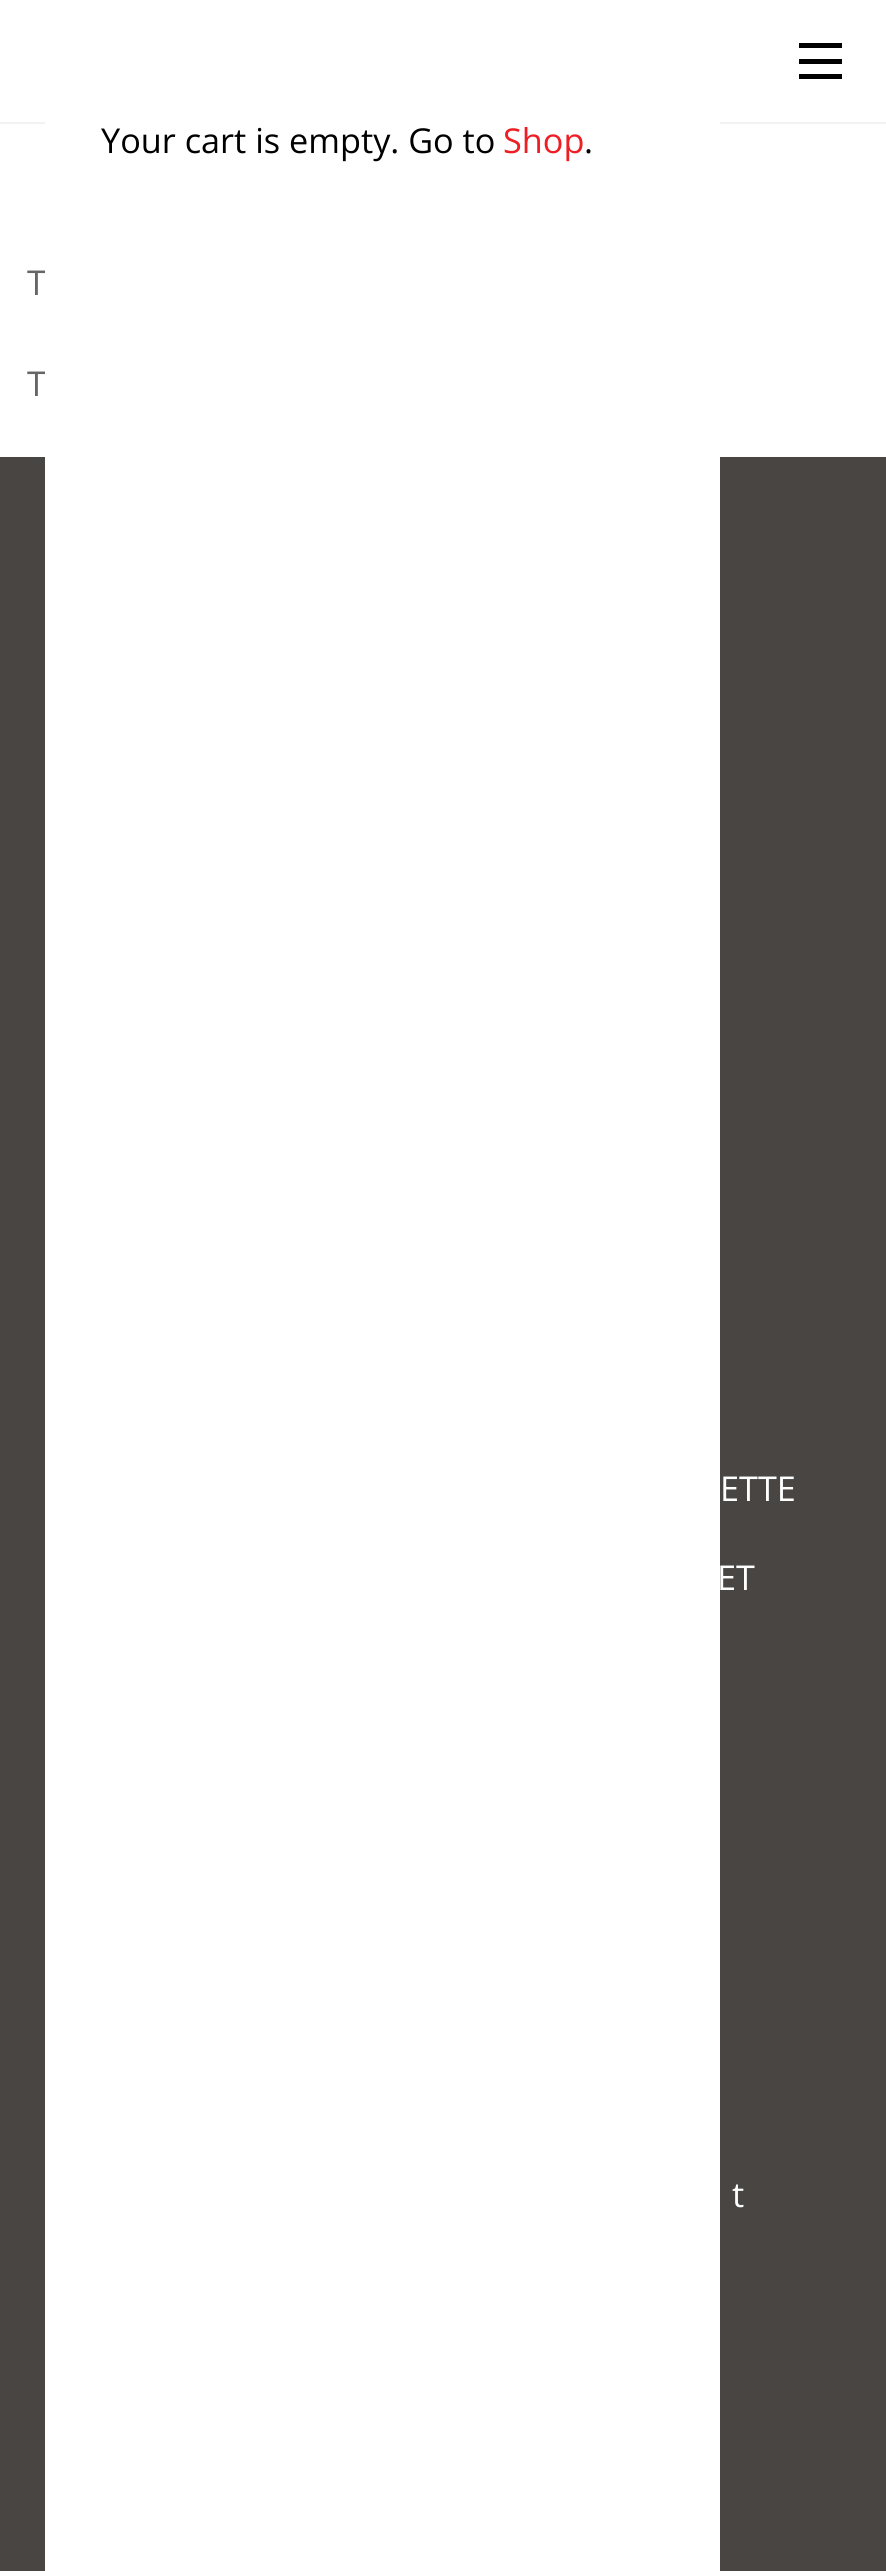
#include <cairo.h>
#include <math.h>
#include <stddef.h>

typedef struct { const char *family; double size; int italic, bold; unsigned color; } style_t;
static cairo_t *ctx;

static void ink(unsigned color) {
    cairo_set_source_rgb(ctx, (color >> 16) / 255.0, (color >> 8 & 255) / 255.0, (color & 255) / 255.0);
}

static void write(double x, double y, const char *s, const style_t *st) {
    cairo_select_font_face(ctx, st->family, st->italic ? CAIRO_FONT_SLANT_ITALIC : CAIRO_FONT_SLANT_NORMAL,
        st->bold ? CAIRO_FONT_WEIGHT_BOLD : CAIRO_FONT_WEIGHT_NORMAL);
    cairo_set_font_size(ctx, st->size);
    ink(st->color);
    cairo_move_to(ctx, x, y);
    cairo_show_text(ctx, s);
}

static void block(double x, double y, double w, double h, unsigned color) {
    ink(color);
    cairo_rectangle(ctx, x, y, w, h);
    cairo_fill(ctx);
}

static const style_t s1 = {"Open Sans", 34.25, 0, 0, 0x666666};
static const style_t s2 = {"Open Sans", 34.25, 0, 0, 0x000000};
static const style_t s3 = {"Open Sans", 34.25, 0, 0, 0xed1e24};
static const style_t s4 = {"Open Sans", 34.25, 0, 0, 0xffffff};

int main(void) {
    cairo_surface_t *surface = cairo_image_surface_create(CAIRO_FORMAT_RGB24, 886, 2571);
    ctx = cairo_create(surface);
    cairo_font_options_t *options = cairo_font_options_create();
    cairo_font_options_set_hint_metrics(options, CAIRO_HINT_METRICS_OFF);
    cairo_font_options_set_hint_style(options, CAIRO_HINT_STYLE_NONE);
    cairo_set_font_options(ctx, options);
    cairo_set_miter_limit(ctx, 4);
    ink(0xffffff);
    cairo_paint(ctx);
    block(0, 122, 886, 2, 0xf2f2f2);
    block(799, 74, 43, 5, 0x000000);
    block(799, 43, 43, 5, 0x000000);
    block(799, 59, 43, 5, 0x000000);
    write(27, 295, "T", &s1);
    write(27, 396, "T", &s1);
    block(0, 457, 886, 2114, 0x484543);
    block(45, 122, 675, 2449, 0xffffff);
    write(101, 153, "Your cart is empty. Go to", &s2);
    write(503, 153, "Shop", &s3);
    write(584, 153, ".", &s2);
    write(720, 1501, "ETTE", &s4);
    write(717, 1590, "ET", &s4);
    write(732, 2207, "t", &s4);
    cairo_surface_write_to_png(surface, "screenshot.png");
    cairo_font_options_destroy(options);
    cairo_destroy(ctx);
    cairo_surface_destroy(surface);
    return 0;
}
